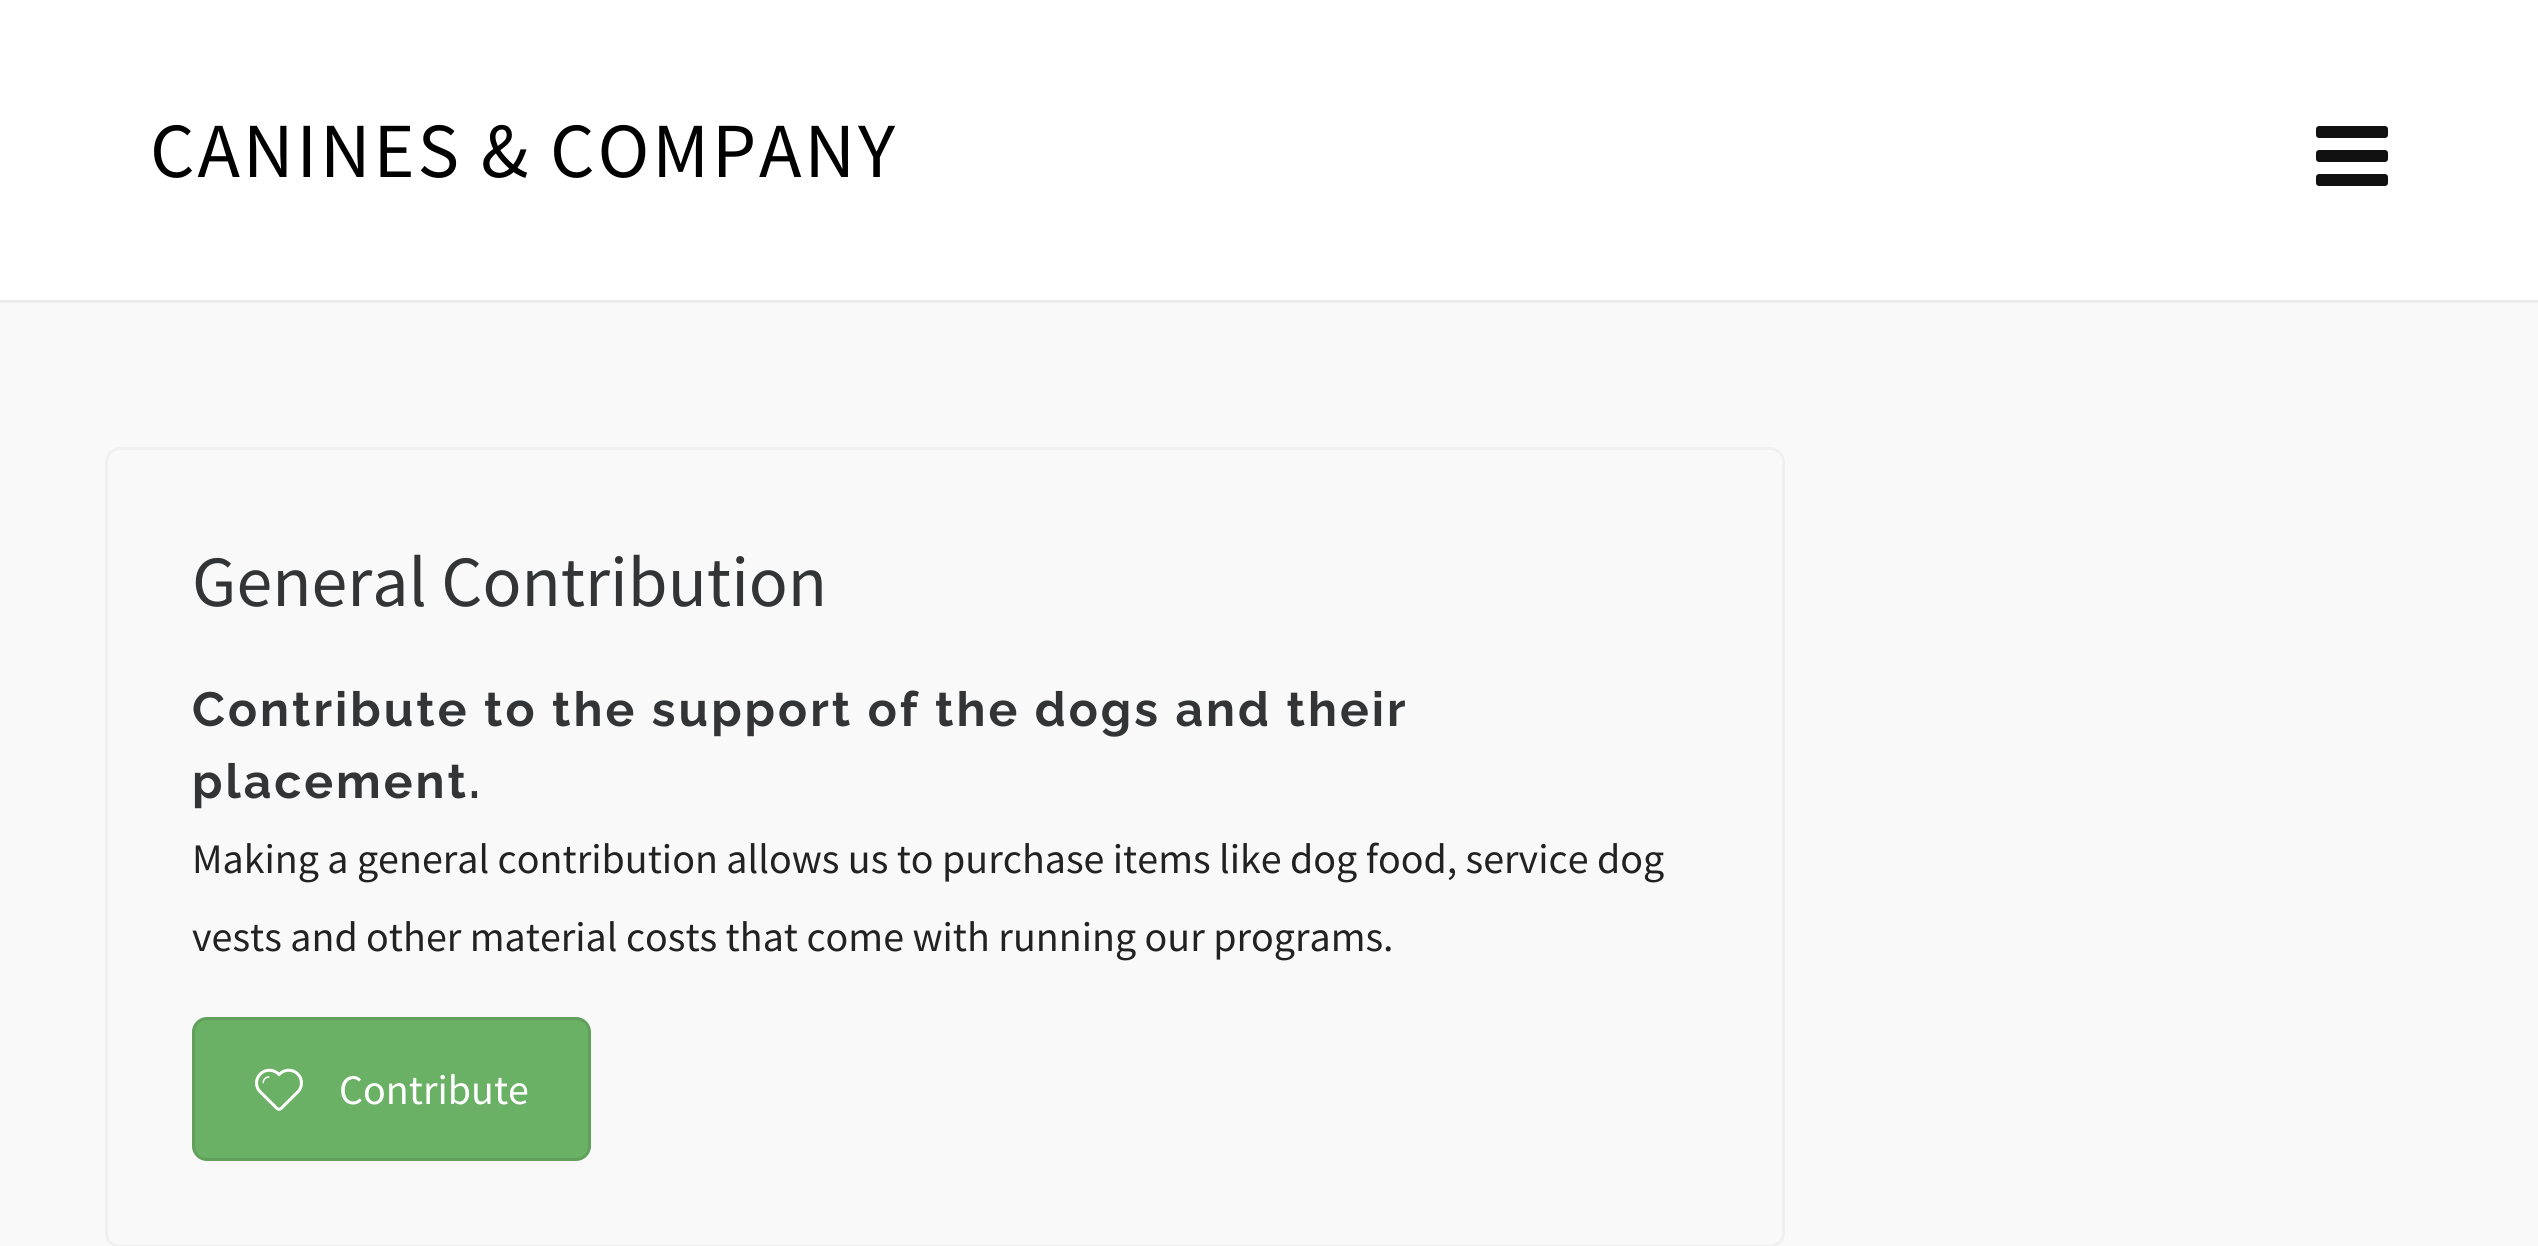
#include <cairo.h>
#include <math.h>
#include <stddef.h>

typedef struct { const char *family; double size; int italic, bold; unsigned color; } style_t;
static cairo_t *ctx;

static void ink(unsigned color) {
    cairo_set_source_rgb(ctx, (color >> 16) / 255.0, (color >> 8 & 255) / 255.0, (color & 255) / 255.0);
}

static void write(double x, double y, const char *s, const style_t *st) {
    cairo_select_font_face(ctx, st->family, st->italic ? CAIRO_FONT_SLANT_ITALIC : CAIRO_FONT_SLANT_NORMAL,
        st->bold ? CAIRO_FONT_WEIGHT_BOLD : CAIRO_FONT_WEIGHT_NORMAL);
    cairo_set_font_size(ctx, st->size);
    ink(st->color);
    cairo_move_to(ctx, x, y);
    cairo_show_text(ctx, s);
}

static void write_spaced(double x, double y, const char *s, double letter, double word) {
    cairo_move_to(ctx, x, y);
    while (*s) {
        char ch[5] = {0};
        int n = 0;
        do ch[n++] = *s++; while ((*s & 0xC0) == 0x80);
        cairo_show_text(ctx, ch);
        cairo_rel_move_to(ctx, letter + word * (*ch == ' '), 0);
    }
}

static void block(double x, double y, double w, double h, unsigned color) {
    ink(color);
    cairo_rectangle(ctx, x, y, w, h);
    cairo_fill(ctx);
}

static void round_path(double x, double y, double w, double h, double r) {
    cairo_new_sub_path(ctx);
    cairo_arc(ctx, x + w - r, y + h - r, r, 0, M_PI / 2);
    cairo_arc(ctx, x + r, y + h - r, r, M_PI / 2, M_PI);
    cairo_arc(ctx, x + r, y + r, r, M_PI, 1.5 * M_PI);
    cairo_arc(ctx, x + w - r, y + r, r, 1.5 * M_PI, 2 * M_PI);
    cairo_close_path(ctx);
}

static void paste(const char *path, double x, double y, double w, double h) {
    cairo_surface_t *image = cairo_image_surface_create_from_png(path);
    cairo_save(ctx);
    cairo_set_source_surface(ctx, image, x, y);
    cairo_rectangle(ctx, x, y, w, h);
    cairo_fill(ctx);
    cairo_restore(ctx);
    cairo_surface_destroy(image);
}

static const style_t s1 = {"Source Sans Pro", 72, 0, 0, 0x323436};
static const style_t s2 = {"Source Sans Pro", 42, 0, 0, 0x222222};
static const style_t s3 = {"Source Sans Pro", 42, 0, 0, 0xffffff};

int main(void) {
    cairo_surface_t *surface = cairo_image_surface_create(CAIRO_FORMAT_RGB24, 2538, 1246);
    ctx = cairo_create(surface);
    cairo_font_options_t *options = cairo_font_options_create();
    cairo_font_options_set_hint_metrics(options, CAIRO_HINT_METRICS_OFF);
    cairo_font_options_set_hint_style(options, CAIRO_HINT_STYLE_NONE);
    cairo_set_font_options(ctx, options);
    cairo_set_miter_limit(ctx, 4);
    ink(0xf9f9f9);
    cairo_paint(ctx);
    block(0, 0, 2538, 300, 0xffffff);
    block(0, 300, 2538, 3, 0xebebeb);
    cairo_select_font_face(ctx, "Source Sans Pro", CAIRO_FONT_SLANT_NORMAL, CAIRO_FONT_WEIGHT_NORMAL);
    cairo_set_font_size(ctx, 78);
    ink(0x000000);
    write_spaced(150, 177, "CANINES & COMPANY", 3, 0);
    paste("pic1.png", 2316, 126, 72, 60);
    round_path(106.5, 448.5, 1677, 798, 13.5);
    ink(0xf0f0f0);
    cairo_set_line_width(ctx, 3);
    cairo_stroke(ctx);
    write(192, 606, "General Contribution", &s1);
    cairo_select_font_face(ctx, "Raleway", CAIRO_FONT_SLANT_NORMAL, CAIRO_FONT_WEIGHT_BOLD);
    cairo_set_font_size(ctx, 48);
    write_spaced(192, 726, "Contribute to the support of the dogs and their", 3, 0);
    write_spaced(192, 798, "placement.", 3, 0);
    write(192, 873, "Making a general contribution allows us to purchase items like dog food, service dog", &s2);
    write(192, 951, "vests and other material costs that come with running our programs.", &s2);
    ink(0x6ab165);
    round_path(192, 1017, 399, 144, 15);
    cairo_fill(ctx);
    round_path(193.5, 1018.5, 396, 141, 13.5);
    cairo_set_source_rgba(ctx, 0, 0, 0, 0.1);
    cairo_stroke(ctx);
    paste("pic2.png", 255, 1068, 48, 43);
    write(339, 1104, "Contribute", &s3);
    cairo_surface_write_to_png(surface, "screenshot.png");
    cairo_font_options_destroy(options);
    cairo_destroy(ctx);
    cairo_surface_destroy(surface);
    return 0;
}
